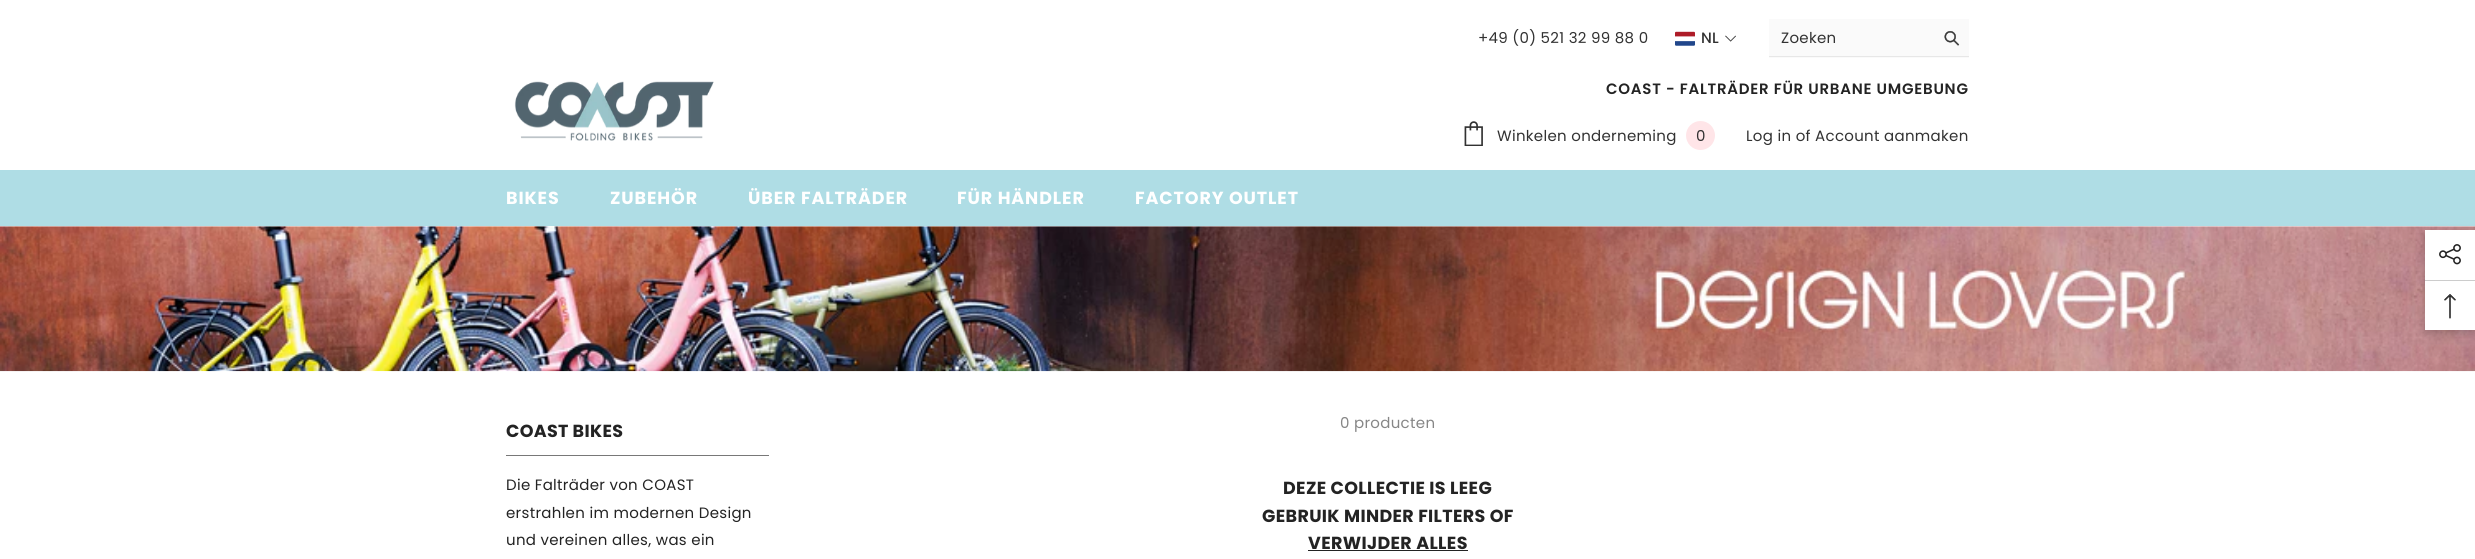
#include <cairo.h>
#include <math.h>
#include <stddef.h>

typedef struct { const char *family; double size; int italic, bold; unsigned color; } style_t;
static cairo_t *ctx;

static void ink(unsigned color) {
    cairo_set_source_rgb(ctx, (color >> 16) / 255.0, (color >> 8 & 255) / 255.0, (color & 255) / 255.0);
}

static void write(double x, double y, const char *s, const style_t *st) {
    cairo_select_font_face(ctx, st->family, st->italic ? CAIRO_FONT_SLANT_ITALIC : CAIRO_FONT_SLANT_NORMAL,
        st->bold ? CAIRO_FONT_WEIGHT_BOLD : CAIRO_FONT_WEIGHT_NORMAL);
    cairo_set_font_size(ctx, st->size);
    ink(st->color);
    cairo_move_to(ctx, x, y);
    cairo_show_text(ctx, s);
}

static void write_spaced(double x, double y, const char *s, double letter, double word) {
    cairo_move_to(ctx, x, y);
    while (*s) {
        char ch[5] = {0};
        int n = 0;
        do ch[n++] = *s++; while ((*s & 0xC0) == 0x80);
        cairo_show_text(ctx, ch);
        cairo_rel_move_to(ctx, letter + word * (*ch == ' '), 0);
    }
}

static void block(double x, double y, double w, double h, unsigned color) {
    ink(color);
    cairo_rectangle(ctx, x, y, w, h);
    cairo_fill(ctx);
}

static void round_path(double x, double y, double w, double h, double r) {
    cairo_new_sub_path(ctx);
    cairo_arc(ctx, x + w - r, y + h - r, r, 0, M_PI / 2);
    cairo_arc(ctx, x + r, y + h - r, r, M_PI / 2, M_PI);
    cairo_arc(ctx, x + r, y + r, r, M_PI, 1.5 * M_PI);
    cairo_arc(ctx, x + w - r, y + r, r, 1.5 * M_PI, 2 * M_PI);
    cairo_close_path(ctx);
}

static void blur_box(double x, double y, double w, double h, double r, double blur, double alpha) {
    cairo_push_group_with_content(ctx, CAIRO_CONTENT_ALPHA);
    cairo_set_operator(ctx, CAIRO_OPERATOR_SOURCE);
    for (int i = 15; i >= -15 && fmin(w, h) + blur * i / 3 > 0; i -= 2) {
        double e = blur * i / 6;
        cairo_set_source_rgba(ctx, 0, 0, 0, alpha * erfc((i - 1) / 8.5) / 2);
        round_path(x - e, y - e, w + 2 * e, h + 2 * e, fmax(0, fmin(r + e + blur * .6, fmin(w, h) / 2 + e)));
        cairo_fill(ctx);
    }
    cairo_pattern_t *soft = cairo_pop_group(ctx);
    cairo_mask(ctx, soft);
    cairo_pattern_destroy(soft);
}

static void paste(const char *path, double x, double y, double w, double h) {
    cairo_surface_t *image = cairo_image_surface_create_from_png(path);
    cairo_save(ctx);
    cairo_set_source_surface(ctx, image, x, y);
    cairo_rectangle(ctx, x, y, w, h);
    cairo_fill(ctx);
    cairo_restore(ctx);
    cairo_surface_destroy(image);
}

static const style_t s1 = {"Poppins", 15, 0, 0, 0x323232};

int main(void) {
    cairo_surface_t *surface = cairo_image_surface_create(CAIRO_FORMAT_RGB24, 2475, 559);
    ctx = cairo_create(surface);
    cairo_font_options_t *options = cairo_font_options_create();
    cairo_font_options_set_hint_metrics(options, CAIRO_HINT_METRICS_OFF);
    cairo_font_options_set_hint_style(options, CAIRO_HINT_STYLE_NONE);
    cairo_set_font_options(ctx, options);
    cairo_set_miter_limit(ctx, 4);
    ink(0xffffff);
    cairo_paint(ctx);
    cairo_select_font_face(ctx, "Poppins", CAIRO_FONT_SLANT_NORMAL, CAIRO_FONT_WEIGHT_NORMAL);
    cairo_set_font_size(ctx, 15);
    ink(0x323232);
    write_spaced(1478, 43, "+49 (0) 521 32 99 88 0", 0.3, 0);
    paste("pic1.png", 1675, 31, 20, 15);
    cairo_select_font_face(ctx, "Poppins Medium", CAIRO_FONT_SLANT_NORMAL, CAIRO_FONT_WEIGHT_NORMAL);
    write_spaced(1701, 43, "NL", 0.3, 0);
    paste("pic2.png", 1725, 35, 11, 7);
    block(1769, 19, 200, 39, 0xfafafa);
    block(1769, 56, 200, 1, 0xe7e7e7);
    cairo_select_font_face(ctx, "Poppins", CAIRO_FONT_SLANT_NORMAL, CAIRO_FONT_WEIGHT_NORMAL);
    ink(0x323232);
    write_spaced(1781, 43, "Zoeken", 0.3, 0);
    paste("pic3.png", 1944, 31, 16, 15);
    paste("pic4.png", 514, 81, 200, 60);
    cairo_select_font_face(ctx, "Poppins SemiBold", CAIRO_FONT_SLANT_NORMAL, CAIRO_FONT_WEIGHT_NORMAL);
    ink(0x232323);
    write_spaced(1606, 94, "COAST - FALTRÄDER FÜR URBANE UMGEBUNG", 0.75, 0);
    paste("pic5.png", 1464, 121, 19, 25);
    cairo_select_font_face(ctx, "Poppins", CAIRO_FONT_SLANT_NORMAL, CAIRO_FONT_WEIGHT_NORMAL);
    ink(0x323232);
    write_spaced(1497, 141, "Winkelen onderneming", 0.3, 0);
    ink(0xffe5e8);
    cairo_new_path(ctx);
    cairo_arc(ctx, 1700.5, 135.5, 14.5, 0, 2 * M_PI);
    cairo_fill(ctx);
    write(1696, 141, "0", &s1);
    write_spaced(1746, 141, "Log in of Account aanmaken", 0.3, 0);
    block(0, 170, 2475, 56, 0xafdde5);
    cairo_select_font_face(ctx, "Poppins", CAIRO_FONT_SLANT_NORMAL, CAIRO_FONT_WEIGHT_BOLD);
    cairo_set_font_size(ctx, 17.5);
    ink(0xffffff);
    write_spaced(506, 204, "BIKES", 0.9, 0);
    write_spaced(610, 204, "ZUBEHÖR", 0.9, 0);
    write_spaced(748, 204, "ÜBER FALTRÄDER", 0.9, 0);
    write_spaced(957, 204, "FÜR HÄNDLER", 0.9, 0);
    write_spaced(1135, 204, "FACTORY OUTLET", 0.9, 0);
    paste("pic6.png", 0, 226, 2475, 146);
    block(506, 455, 263, 1, 0x787878);
    ink(0x232323);
    write_spaced(506, 437, "COAST BIKES", 0.3, 0);
    cairo_select_font_face(ctx, "Poppins", CAIRO_FONT_SLANT_NORMAL, CAIRO_FONT_WEIGHT_NORMAL);
    cairo_set_font_size(ctx, 15);
    write_spaced(506, 490, "Die Falträder von COAST", 0.3, 0);
    write_spaced(506, 518, "erstrahlen im modernen Design", 0.3, 0);
    write_spaced(506, 545, "und vereinen alles, was ein", 0.3, 0);
    ink(0x868686);
    write_spaced(1340, 428, "0 producten", 0.3, 0);
    cairo_select_font_face(ctx, "Poppins", CAIRO_FONT_SLANT_NORMAL, CAIRO_FONT_WEIGHT_BOLD);
    cairo_set_font_size(ctx, 17.5);
    ink(0x232323);
    write_spaced(1283, 494, "DEZE COLLECTIE IS LEEG", 0.35, 0);
    write_spaced(1262, 522, "GEBRUIK MINDER FILTERS OF", 0.35, 0);
    write_spaced(1308, 549, "VERWIJDER ALLES", 0.35, 0);
    block(1308, 550, 160, 1, 0x232323);
    ink(0x000000);
    blur_box(2425, 234, 50, 100, 0, 4.5, 0.2);
    block(2425, 230, 50, 100, 0xffffff);
    paste("pic7.png", 2439, 244, 22, 21);
    block(2425, 280, 50, 1, 0xcccccc);
    paste("pic8.png", 2444, 294, 12, 25);
    cairo_surface_write_to_png(surface, "screenshot.png");
    cairo_font_options_destroy(options);
    cairo_destroy(ctx);
    cairo_surface_destroy(surface);
    return 0;
}
